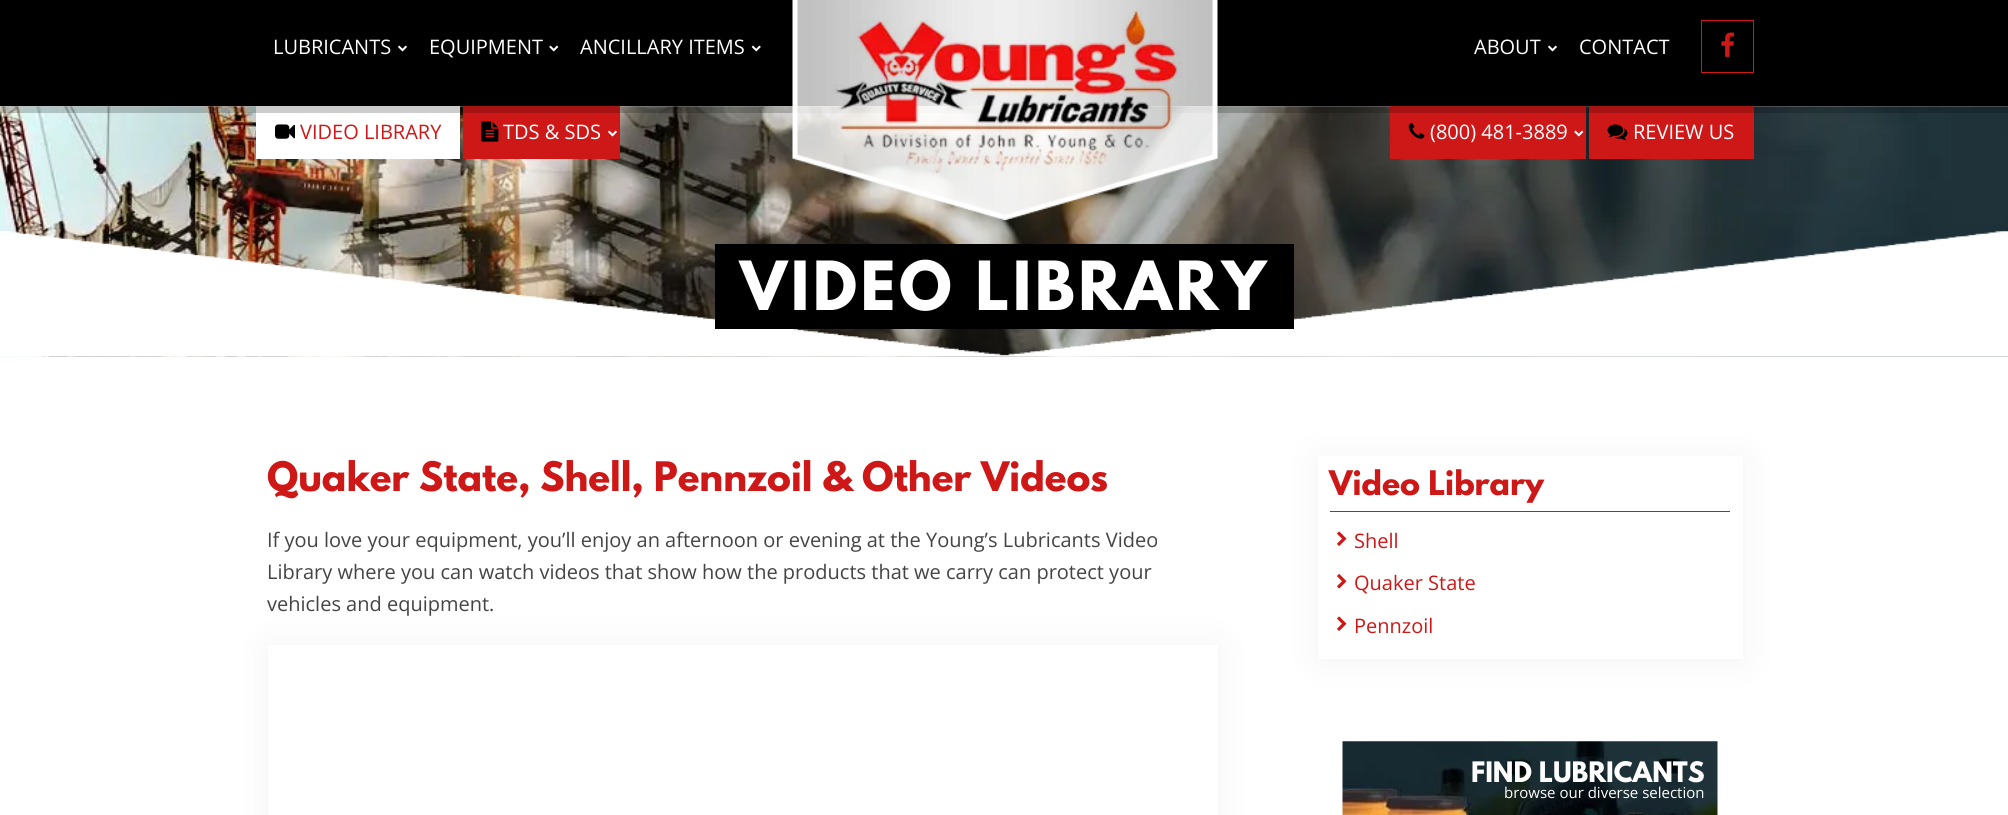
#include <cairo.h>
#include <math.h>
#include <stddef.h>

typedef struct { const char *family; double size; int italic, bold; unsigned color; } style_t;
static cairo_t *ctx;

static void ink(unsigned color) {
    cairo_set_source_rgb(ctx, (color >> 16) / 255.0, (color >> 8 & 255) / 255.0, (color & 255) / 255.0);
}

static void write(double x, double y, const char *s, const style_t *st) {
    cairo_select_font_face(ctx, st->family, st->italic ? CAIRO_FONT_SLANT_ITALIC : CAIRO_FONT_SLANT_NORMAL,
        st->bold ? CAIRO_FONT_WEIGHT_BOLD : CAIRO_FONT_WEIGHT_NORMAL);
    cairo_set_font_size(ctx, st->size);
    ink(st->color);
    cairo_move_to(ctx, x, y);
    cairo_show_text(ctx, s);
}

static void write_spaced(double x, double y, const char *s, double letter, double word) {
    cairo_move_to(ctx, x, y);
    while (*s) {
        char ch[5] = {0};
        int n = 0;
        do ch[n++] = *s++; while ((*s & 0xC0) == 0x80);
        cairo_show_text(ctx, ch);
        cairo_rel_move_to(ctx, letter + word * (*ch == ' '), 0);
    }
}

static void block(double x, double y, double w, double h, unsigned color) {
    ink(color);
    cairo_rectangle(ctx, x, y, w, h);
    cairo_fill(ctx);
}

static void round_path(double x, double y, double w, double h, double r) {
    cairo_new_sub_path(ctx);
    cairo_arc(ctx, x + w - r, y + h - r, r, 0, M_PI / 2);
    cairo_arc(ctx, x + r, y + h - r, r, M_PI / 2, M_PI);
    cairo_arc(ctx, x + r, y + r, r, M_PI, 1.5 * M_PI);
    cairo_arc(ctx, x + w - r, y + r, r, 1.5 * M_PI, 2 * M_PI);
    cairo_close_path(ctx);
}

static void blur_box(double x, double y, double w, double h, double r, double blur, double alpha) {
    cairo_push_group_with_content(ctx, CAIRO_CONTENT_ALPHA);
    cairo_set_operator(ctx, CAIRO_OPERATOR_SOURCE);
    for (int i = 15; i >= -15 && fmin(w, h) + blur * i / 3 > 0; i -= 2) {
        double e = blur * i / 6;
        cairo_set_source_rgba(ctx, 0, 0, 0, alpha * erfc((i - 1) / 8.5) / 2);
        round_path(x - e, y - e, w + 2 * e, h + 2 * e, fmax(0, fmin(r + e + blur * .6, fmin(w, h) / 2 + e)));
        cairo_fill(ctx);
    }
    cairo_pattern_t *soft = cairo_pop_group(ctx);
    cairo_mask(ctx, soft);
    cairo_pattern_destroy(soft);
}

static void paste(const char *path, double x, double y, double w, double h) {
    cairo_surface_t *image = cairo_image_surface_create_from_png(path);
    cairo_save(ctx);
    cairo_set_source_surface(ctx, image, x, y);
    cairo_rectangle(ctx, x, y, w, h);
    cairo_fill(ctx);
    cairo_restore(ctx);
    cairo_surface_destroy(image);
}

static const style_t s1 = {"Open Sans", 20, 0, 0, 0xffffff};
static const style_t s2 = {"Open Sans", 20, 0, 0, 0xce1817};
static const style_t s3 = {"League Spartan", 36, 0, 1, 0xce1817};
static const style_t s4 = {"Open Sans", 20, 0, 0, 0x444444};
static const style_t s5 = {"League Spartan", 30, 0, 1, 0xce1817};
static const style_t s6 = {"League Spartan", 25, 0, 1, 0xffffff};
static const style_t s7 = {"Open Sans", 15, 0, 0, 0xffffff};

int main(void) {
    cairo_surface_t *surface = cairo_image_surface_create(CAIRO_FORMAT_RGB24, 2008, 815);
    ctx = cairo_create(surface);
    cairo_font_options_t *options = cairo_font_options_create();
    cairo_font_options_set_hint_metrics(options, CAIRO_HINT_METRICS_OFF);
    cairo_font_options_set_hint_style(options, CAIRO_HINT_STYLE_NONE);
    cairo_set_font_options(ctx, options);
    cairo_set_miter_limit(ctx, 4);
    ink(0xffffff);
    cairo_paint(ctx);
    block(0, 0, 2008, 106, 0x000000);
    write(273, 54, "LUBRICANTS", &s1);
    paste("pic1.png", 398, 45, 9, 7);
    write(429, 54, "EQUIPMENT", &s1);
    paste("pic2.png", 549, 45, 10, 7);
    write(580, 54, "ANCILLARY ITEMS", &s1);
    paste("pic3.png", 751, 45, 10, 7);
    paste("pic12.png", 0, 106, 2008, 251);
    block(256, 106, 204, 53, 0xffffff);
    block(463, 106, 157, 53, 0xce1817);
    block(1390, 106, 196, 53, 0xce1817);
    block(1589, 106, 165, 53, 0xce1817);
    cairo_set_source_rgba(ctx, 0, 0, 0, 0.2);
    cairo_rectangle(ctx, 0, 106, 2008, 7);
    cairo_fill(ctx);
    paste("pic4.png", 792, 0, 426, 221);
    write(1474, 54, "ABOUT", &s1);
    paste("pic1.png", 1548, 45, 9, 7);
    write(1579, 54, "CONTACT", &s1);
    cairo_rectangle(ctx, 1701.5, 20.5, 52, 52);
    ink(0xce1817);
    cairo_set_line_width(ctx, 1);
    cairo_stroke(ctx);
    paste("pic5.png", 1721, 32, 14, 25);
    paste("pic6.png", 275, 124, 20, 15);
    write(300, 139, "VIDEO LIBRARY", &s2);
    paste("pic7.png", 481, 121, 18, 21);
    write(503, 139, "TDS & SDS", &s1);
    paste("pic8.png", 608, 130, 9, 7);
    paste("pic9.png", 1408, 123, 17, 16);
    write(1430, 139, "(800) 481-3889", &s1);
    paste("pic10.png", 1574, 130, 10, 7);
    paste("pic11.png", 1607, 124, 21, 17);
    write(1633, 139, "REVIEW US", &s1);
    paste("pic13.png", 0, 231, 2008, 126);
    block(715, 244, 579, 85, 0x000000);
    cairo_select_font_face(ctx, "League Spartan", CAIRO_FONT_SLANT_NORMAL, CAIRO_FONT_WEIGHT_BOLD);
    cairo_set_font_size(ctx, 60);
    ink(0xffffff);
    write_spaced(740, 310, "VIDEO LIBRARY", 3.6, 0);
    write(267, 491, "Quaker State, Shell, Pennzoil & Other Videos", &s3);
    write(267, 547, "If you love your equipment, you’ll enjoy an afternoon or evening at the Young’s Lubricants Video", &s4);
    write(267, 579, "Library where you can watch videos that show how the products that we carry can protect your", &s4);
    write(267, 611, "vehicles and equipment.", &s4);
    ink(0x000000);
    blur_box(268, 646, 950, 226, 0, 19, 0.05);
    block(268, 645, 950, 170, 0xffffff);
    ink(0x000000);
    blur_box(1318, 458, 425, 202, 0, 19, 0.05);
    block(1318, 456, 425, 203, 0xffffff);
    block(1330, 511, 400, 1, 0xce1817);
    write(1329, 495, "Video Library", &s5);
    paste("pic14.png", 1337, 531, 10, 15);
    write(1354, 548, "Shell", &s2);
    paste("pic15.png", 1337, 574, 10, 15);
    write(1354, 590, "Quaker State", &s2);
    paste("pic14.png", 1337, 616, 10, 15);
    write(1354, 633, "Pennzoil", &s2);
    paste("pic16.png", 1342, 741, 376, 74);
    write(1471, 782, "FIND LUBRICANTS", &s6);
    write(1504, 798, "browse our diverse selection", &s7);
    cairo_surface_write_to_png(surface, "screenshot.png");
    cairo_font_options_destroy(options);
    cairo_destroy(ctx);
    cairo_surface_destroy(surface);
    return 0;
}
